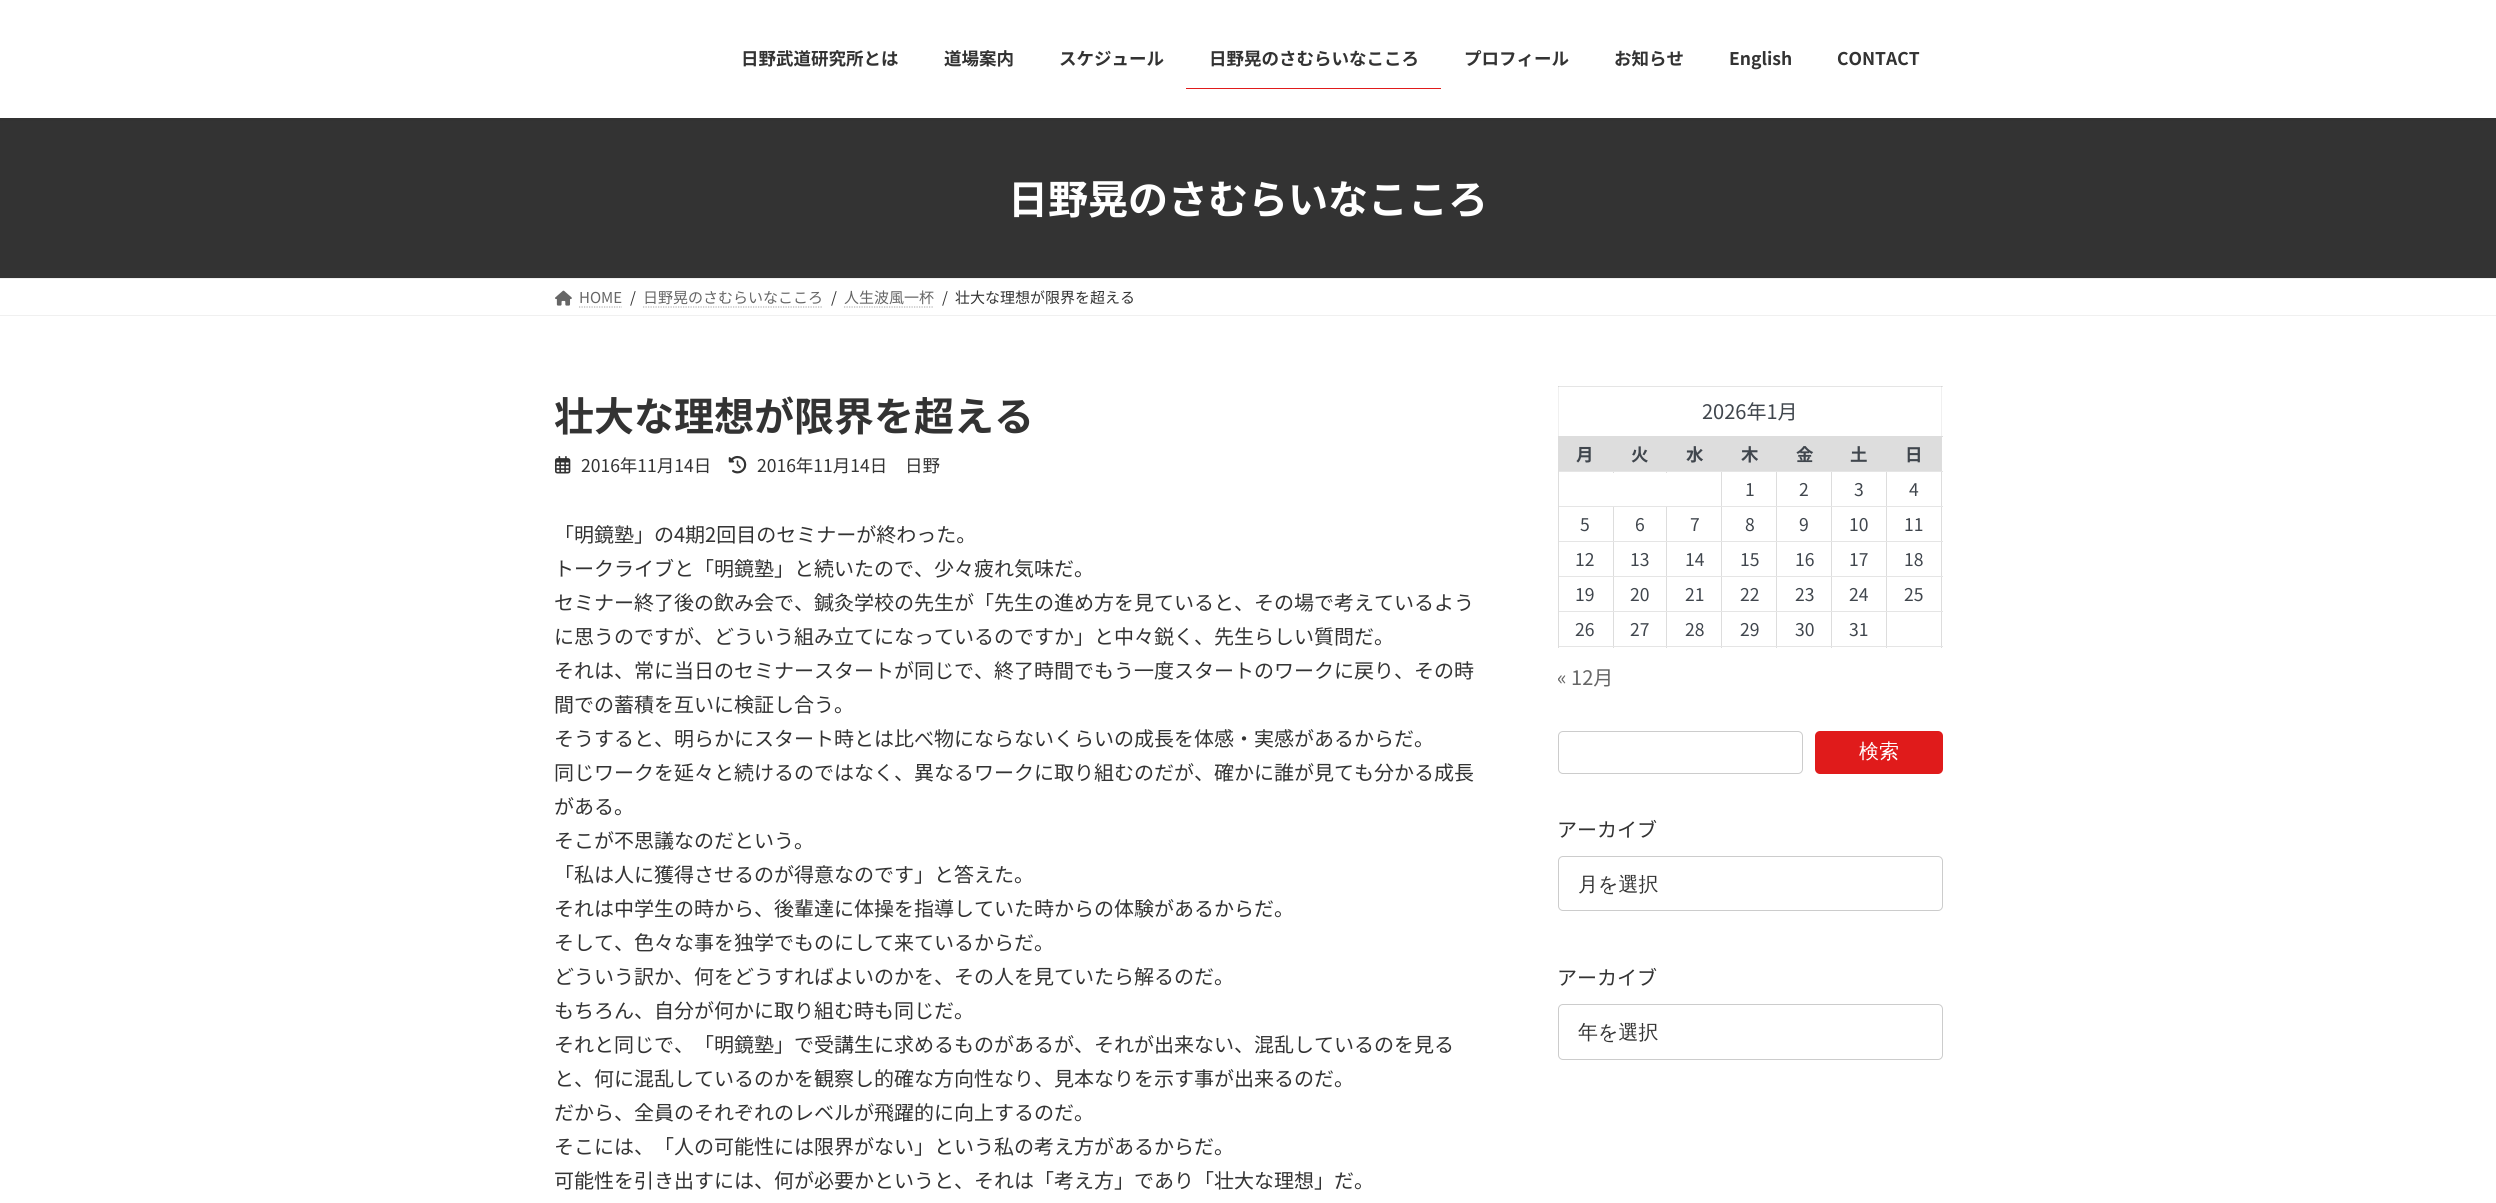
#include <cairo.h>
#include <math.h>
#include <stddef.h>

typedef struct { const char *family; double size; int italic, bold; unsigned color; } style_t;
static cairo_t *ctx;

static void ink(unsigned color) {
    cairo_set_source_rgb(ctx, (color >> 16) / 255.0, (color >> 8 & 255) / 255.0, (color & 255) / 255.0);
}

static void write(double x, double y, const char *s, const style_t *st) {
    cairo_select_font_face(ctx, st->family, st->italic ? CAIRO_FONT_SLANT_ITALIC : CAIRO_FONT_SLANT_NORMAL,
        st->bold ? CAIRO_FONT_WEIGHT_BOLD : CAIRO_FONT_WEIGHT_NORMAL);
    cairo_set_font_size(ctx, st->size);
    ink(st->color);
    cairo_move_to(ctx, x, y);
    cairo_show_text(ctx, s);
}

static void block(double x, double y, double w, double h, unsigned color) {
    ink(color);
    cairo_rectangle(ctx, x, y, w, h);
    cairo_fill(ctx);
}

static void round_path(double x, double y, double w, double h, double r) {
    cairo_new_sub_path(ctx);
    cairo_arc(ctx, x + w - r, y + h - r, r, 0, M_PI / 2);
    cairo_arc(ctx, x + r, y + h - r, r, M_PI / 2, M_PI);
    cairo_arc(ctx, x + r, y + r, r, M_PI, 1.5 * M_PI);
    cairo_arc(ctx, x + w - r, y + r, r, 1.5 * M_PI, 2 * M_PI);
    cairo_close_path(ctx);
}

static void blur_box(double x, double y, double w, double h, double r, double blur, double alpha) {
    cairo_push_group_with_content(ctx, CAIRO_CONTENT_ALPHA);
    cairo_set_operator(ctx, CAIRO_OPERATOR_SOURCE);
    for (int i = 15; i >= -15 && fmin(w, h) + blur * i / 3 > 0; i -= 2) {
        double e = blur * i / 6;
        cairo_set_source_rgba(ctx, 0, 0, 0, alpha * erfc((i - 1) / 8.5) / 2);
        round_path(x - e, y - e, w + 2 * e, h + 2 * e, fmax(0, fmin(r + e + blur * .6, fmin(w, h) / 2 + e)));
        cairo_fill(ctx);
    }
    cairo_pattern_t *soft = cairo_pop_group(ctx);
    cairo_mask(ctx, soft);
    cairo_pattern_destroy(soft);
}

static void paste(const char *path, double x, double y, double w, double h) {
    cairo_surface_t *image = cairo_image_surface_create_from_png(path);
    cairo_save(ctx);
    cairo_set_source_surface(ctx, image, x, y);
    cairo_rectangle(ctx, x, y, w, h);
    cairo_fill(ctx);
    cairo_restore(ctx);
    cairo_surface_destroy(image);
}

static const style_t s1 = {"Noto Sans JP", 17.5, 0, 1, 0x333333};
static const style_t s2 = {"Noto Sans JP", 40, 0, 1, 0xffffff};
static const style_t s3 = {"Noto Sans JP", 15, 0, 0, 0x666666};
static const style_t s4 = {"Noto Sans JP", 15, 0, 0, 0x333333};
static const style_t s5 = {"Noto Sans JP", 40, 0, 1, 0x333333};
static const style_t s6 = {"Noto Sans JP", 17.5, 0, 0, 0x333333};
static const style_t s7 = {"Noto Sans JP", 20, 0, 0, 0x333333};
static const style_t s8 = {"Noto Sans JP", 20, 0, 0, 0x40464d};
static const style_t s9 = {"Noto Sans JP", 17.5, 0, 1, 0x40464d};
static const style_t s10 = {"Noto Sans JP", 17.5, 0, 0, 0x40464d};
static const style_t s11 = {"Noto Sans JP", 20, 0, 0, 0x666666};
static const style_t s12 = {"WenQuanYi Zen Hei Medium", 20, 0, 0, 0xffffff};
static const style_t s13 = {"WenQuanYi Zen Hei Medium", 20, 0, 0, 0x333333};

int main(void) {
    cairo_surface_t *surface = cairo_image_surface_create(CAIRO_FORMAT_RGB24, 2496, 1203);
    ctx = cairo_create(surface);
    cairo_font_options_t *options = cairo_font_options_create();
    cairo_font_options_set_hint_metrics(options, CAIRO_HINT_METRICS_OFF);
    cairo_font_options_set_hint_style(options, CAIRO_HINT_STYLE_NONE);
    cairo_set_font_options(ctx, options);
    cairo_set_miter_limit(ctx, 4);
    ink(0xffffff);
    cairo_paint(ctx);
    block(1558, 386, 1, 50, 0xf0f0f0);
    block(1941, 386, 1, 50, 0xf0f0f0);
    block(0, 118, 2496, 160, 0x333333);
    ink(0x000000);
    blur_box(0, 1, 2496, 118, 0, 2, 0.05);
    block(0, 0, 2496, 118, 0xffffff);
    write(741, 65, "日野武道研究所とは", &s1);
    write(944, 65, "道場案内", &s1);
    write(1059, 65, "スケジュール", &s1);
    write(1209, 65, "日野晃のさむらいなこころ", &s1);
    block(1186, 88, 255, 1, 0xe01b1b);
    write(1464, 65, "プロフィール", &s1);
    write(1614, 65, "お知らせ", &s1);
    write(1729, 65, "English", &s1);
    write(1837, 65, "CONTACT", &s1);
    write(1008, 214, "日野晃のさむらいなこころ", &s2);
    block(0, 278, 2496, 1, 0xf0f0f0);
    block(0, 315, 2496, 1, 0xf0f0f0);
    paste("pic1.png", 555, 290, 17, 16);
    write(579, 303, "HOME", &s3);
    cairo_new_path(ctx);
    cairo_move_to(ctx, 579, 307);
    cairo_line_to(ctx, 622, 307);
    ink(0xb3b3b3);
    cairo_set_line_width(ctx, 1.2);
    cairo_set_dash(ctx, (double[]){1.25, 1.25}, 2, 0);
    cairo_stroke(ctx);
    write(630, 303, "/", &s4);
    write(643, 303, "日野晃のさむらいなこころ", &s3);
    cairo_new_path(ctx);
    cairo_move_to(ctx, 643, 307);
    cairo_line_to(ctx, 823, 307);
    ink(0xb3b3b3);
    cairo_stroke(ctx);
    write(831, 303, "/", &s4);
    write(844, 303, "人生波風一杯", &s3);
    cairo_new_path(ctx);
    cairo_move_to(ctx, 844, 307);
    cairo_line_to(ctx, 934, 307);
    ink(0xb3b3b3);
    cairo_stroke(ctx);
    write(942, 303, "/", &s4);
    write(955, 303, "壮大な理想が限界を超える", &s4);
    write(554, 431, "壮大な理想が限界を超える", &s5);
    paste("pic2.png", 555, 456, 16, 18);
    write(581, 472, "2016年11月14日", &s6);
    paste("pic3.png", 728, 455, 19, 19);
    write(757, 472, "2016年11月14日", &s6);
    write(905, 472, "日野", &s6);
    write(554, 542, "「明鏡塾」の4期2回目のセミナーが終わった。", &s7);
    write(554, 576, "トークライブと「明鏡塾」と続いたので、少々疲れ気味だ。", &s7);
    write(554, 610, "セミナー終了後の飲み会で、鍼灸学校の先生が「先生の進め方を見ていると、その場で考えているよう", &s7);
    write(554, 644, "に思うのですが、どういう組み立てになっているのですか」と中々鋭く、先生らしい質問だ。", &s7);
    write(554, 678, "それは、常に当日のセミナースタートが同じで、終了時間でもう一度スタートのワークに戻り、その時", &s7);
    write(554, 712, "間での蓄積を互いに検証し合う。", &s7);
    write(554, 746, "そうすると、明らかにスタート時とは比べ物にならないくらいの成長を体感・実感があるからだ。", &s7);
    write(554, 780, "同じワークを延々と続けるのではなく、異なるワークに取り組むのだが、確かに誰が見ても分かる成長", &s7);
    write(554, 814, "がある。", &s7);
    write(554, 848, "そこが不思議なのだという。", &s7);
    write(554, 882, "「私は人に獲得させるのが得意なのです」と答えた。", &s7);
    write(554, 916, "それは中学生の時から、後輩達に体操を指導していた時からの体験があるからだ。", &s7);
    write(554, 950, "そして、色々な事を独学でものにして来ているからだ。", &s7);
    write(554, 984, "どういう訳か、何をどうすればよいのかを、その人を見ていたら解るのだ。", &s7);
    write(554, 1018, "もちろん、自分が何かに取り組む時も同じだ。", &s7);
    write(554, 1052, "それと同じで、「明鏡塾」で受講生に求めるものがあるが、それが出来ない、混乱しているのを見る", &s7);
    write(554, 1086, "と、何に混乱しているのかを観察し的確な方向性なり、見本なりを示す事が出来るのだ。", &s7);
    write(554, 1120, "だから、全員のそれぞれのレベルが飛躍的に向上するのだ。", &s7);
    write(554, 1154, "そこには、「人の可能性には限界がない」という私の考え方があるからだ。", &s7);
    write(554, 1188, "可能性を引き出すには、何が必要かというと、それは「考え方」であり「壮大な理想」だ。", &s7);
    block(1558, 386, 385, 1, 0xe5e5e5);
    block(1558, 386, 1, 1, 0xd7d7d7);
    block(1941, 386, 1, 1, 0xd7d7d7);
    write(1702, 419, "2026年1月", &s8);
    block(1559, 437, 54, 34, 0xdddddd);
    block(1886, 436, 57, 1, 0xdddddd);
    block(1941, 471, 1, 177, 0xdddddd);
    block(1941, 436, 1, 37, 0xdddddd);
    block(1886, 646, 57, 1, 0xe5e5e5);
    block(1886, 611, 1, 37, 0xdddddd);
    block(1886, 611, 57, 1, 0xe5e5e5);
    block(1886, 576, 1, 37, 0xdddddd);
    block(1886, 576, 57, 1, 0xe5e5e5);
    block(1886, 541, 1, 37, 0xdddddd);
    block(1886, 541, 57, 1, 0xe5e5e5);
    block(1886, 506, 1, 37, 0xdddddd);
    block(1886, 506, 57, 1, 0xe5e5e5);
    block(1886, 471, 1, 37, 0xdddddd);
    block(1886, 471, 57, 1, 0xe5e5e5);
    block(1886, 436, 1, 37, 0xdddddd);
    block(1831, 646, 57, 1, 0xe5e5e5);
    block(1831, 611, 1, 37, 0xdddddd);
    block(1831, 611, 57, 1, 0xe5e5e5);
    block(1831, 576, 1, 37, 0xdddddd);
    block(1831, 576, 57, 1, 0xe5e5e5);
    block(1831, 541, 1, 37, 0xdddddd);
    block(1831, 541, 57, 1, 0xe5e5e5);
    block(1831, 506, 1, 37, 0xdddddd);
    block(1831, 506, 57, 1, 0xe5e5e5);
    block(1831, 471, 1, 37, 0xdddddd);
    block(1831, 471, 57, 1, 0xe5e5e5);
    block(1831, 436, 1, 37, 0xdddddd);
    block(1776, 646, 57, 1, 0xe5e5e5);
    block(1776, 611, 1, 37, 0xdddddd);
    block(1776, 611, 57, 1, 0xe5e5e5);
    block(1776, 576, 1, 37, 0xdddddd);
    block(1776, 576, 57, 1, 0xe5e5e5);
    block(1776, 541, 1, 37, 0xdddddd);
    block(1776, 541, 57, 1, 0xe5e5e5);
    block(1776, 506, 1, 37, 0xdddddd);
    block(1776, 506, 57, 1, 0xe5e5e5);
    block(1776, 471, 1, 37, 0xdddddd);
    block(1776, 471, 57, 1, 0xe5e5e5);
    block(1776, 471, 1, 2, 0xdddddd);
    block(1721, 646, 57, 1, 0xe5e5e5);
    block(1721, 611, 1, 37, 0xdddddd);
    block(1721, 611, 57, 1, 0xe5e5e5);
    block(1721, 576, 1, 37, 0xdddddd);
    block(1721, 576, 57, 1, 0xe5e5e5);
    block(1721, 541, 1, 37, 0xdddddd);
    block(1721, 541, 57, 1, 0xe5e5e5);
    block(1721, 506, 1, 37, 0xdddddd);
    block(1721, 506, 57, 1, 0xe5e5e5);
    block(1721, 471, 1, 37, 0xdddddd);
    block(1721, 471, 57, 1, 0xe5e5e5);
    block(1721, 471, 1, 2, 0xdddddd);
    block(1666, 471, 57, 1, 0xe5e5e5);
    block(1666, 471, 1, 2, 0xdddddd);
    block(1613, 471, 55, 1, 0xe5e5e5);
    block(1613, 436, 1, 37, 0xdddddd);
    block(1558, 436, 56, 1, 0xdddddd);
    block(1666, 646, 57, 1, 0xe5e5e5);
    block(1666, 611, 1, 37, 0xdddddd);
    block(1666, 611, 57, 1, 0xe5e5e5);
    block(1666, 576, 1, 37, 0xdddddd);
    block(1666, 576, 57, 1, 0xe5e5e5);
    block(1666, 541, 1, 37, 0xdddddd);
    block(1666, 541, 57, 1, 0xe5e5e5);
    block(1666, 506, 1, 37, 0xdddddd);
    block(1613, 646, 55, 1, 0xe5e5e5);
    block(1613, 611, 1, 37, 0xdddddd);
    block(1613, 611, 55, 1, 0xe5e5e5);
    block(1613, 576, 1, 37, 0xdddddd);
    block(1613, 576, 55, 1, 0xe5e5e5);
    block(1613, 541, 1, 37, 0xdddddd);
    block(1613, 541, 55, 1, 0xe5e5e5);
    block(1613, 506, 1, 37, 0xdddddd);
    block(1558, 646, 56, 1, 0xe5e5e5);
    block(1558, 611, 1, 37, 0xdddddd);
    block(1558, 611, 56, 1, 0xe5e5e5);
    block(1558, 576, 1, 37, 0xdddddd);
    block(1558, 576, 56, 1, 0xe5e5e5);
    block(1558, 541, 1, 37, 0xdddddd);
    block(1558, 541, 56, 1, 0xe5e5e5);
    block(1558, 506, 1, 37, 0xdddddd);
    block(1558, 506, 165, 1, 0xe5e5e5);
    block(1558, 471, 1, 37, 0xdddddd);
    block(1558, 471, 56, 1, 0xe5e5e5);
    block(1558, 436, 1, 37, 0xdddddd);
    write(1576, 461, "月", &s9);
    block(1614, 436, 217, 35, 0xdddddd);
    write(1631, 461, "火", &s9);
    write(1686, 461, "水", &s9);
    write(1741, 461, "木", &s9);
    write(1796, 461, "金", &s9);
    block(1832, 436, 54, 35, 0xdddddd);
    write(1850, 461, "土", &s9);
    block(1887, 437, 54, 34, 0xdddddd);
    write(1905, 461, "日", &s9);
    write(1745, 496, "1", &s10);
    write(1799, 496, "2", &s10);
    write(1854, 496, "3", &s10);
    write(1909, 496, "4", &s10);
    write(1580, 531, "5", &s10);
    write(1635, 531, "6", &s10);
    write(1690, 531, "7", &s10);
    write(1745, 531, "8", &s10);
    write(1799, 531, "9", &s10);
    write(1849, 531, "10", &s10);
    write(1904, 531, "11", &s10);
    write(1575, 566, "12", &s10);
    write(1630, 566, "13", &s10);
    write(1685, 566, "14", &s10);
    write(1740, 566, "15", &s10);
    write(1795, 566, "16", &s10);
    write(1849, 566, "17", &s10);
    write(1904, 566, "18", &s10);
    write(1575, 601, "19", &s10);
    write(1630, 601, "20", &s10);
    write(1685, 601, "21", &s10);
    write(1740, 601, "22", &s10);
    write(1795, 601, "23", &s10);
    write(1849, 601, "24", &s10);
    write(1904, 601, "25", &s10);
    write(1575, 636, "26", &s10);
    write(1630, 636, "27", &s10);
    write(1685, 636, "28", &s10);
    write(1740, 636, "29", &s10);
    write(1795, 636, "30", &s10);
    write(1849, 636, "31", &s10);
    write(1557, 685, "« 12月", &s11);
    round_path(1558.5, 731.5, 244, 42, 4.5);
    ink(0xcccccc);
    cairo_set_line_width(ctx, 1);
    cairo_set_dash(ctx, NULL, 0, 0);
    cairo_stroke(ctx);
    ink(0xe01b1b);
    round_path(1815, 731, 128, 43, 5);
    cairo_fill(ctx);
    write(1859, 758, "検索", &s12);
    write(1557, 837, "アーカイブ", &s7);
    round_path(1558.5, 856.5, 384, 54, 4.5);
    ink(0xcccccc);
    cairo_stroke(ctx);
    write(1578, 891, "月を選択", &s13);
    write(1557, 985, "アーカイブ", &s7);
    round_path(1558.5, 1004.5, 384, 55, 4.5);
    ink(0xcccccc);
    cairo_stroke(ctx);
    write(1578, 1039, "年を選択", &s13);
    cairo_surface_write_to_png(surface, "screenshot.png");
    cairo_font_options_destroy(options);
    cairo_destroy(ctx);
    cairo_surface_destroy(surface);
    return 0;
}
